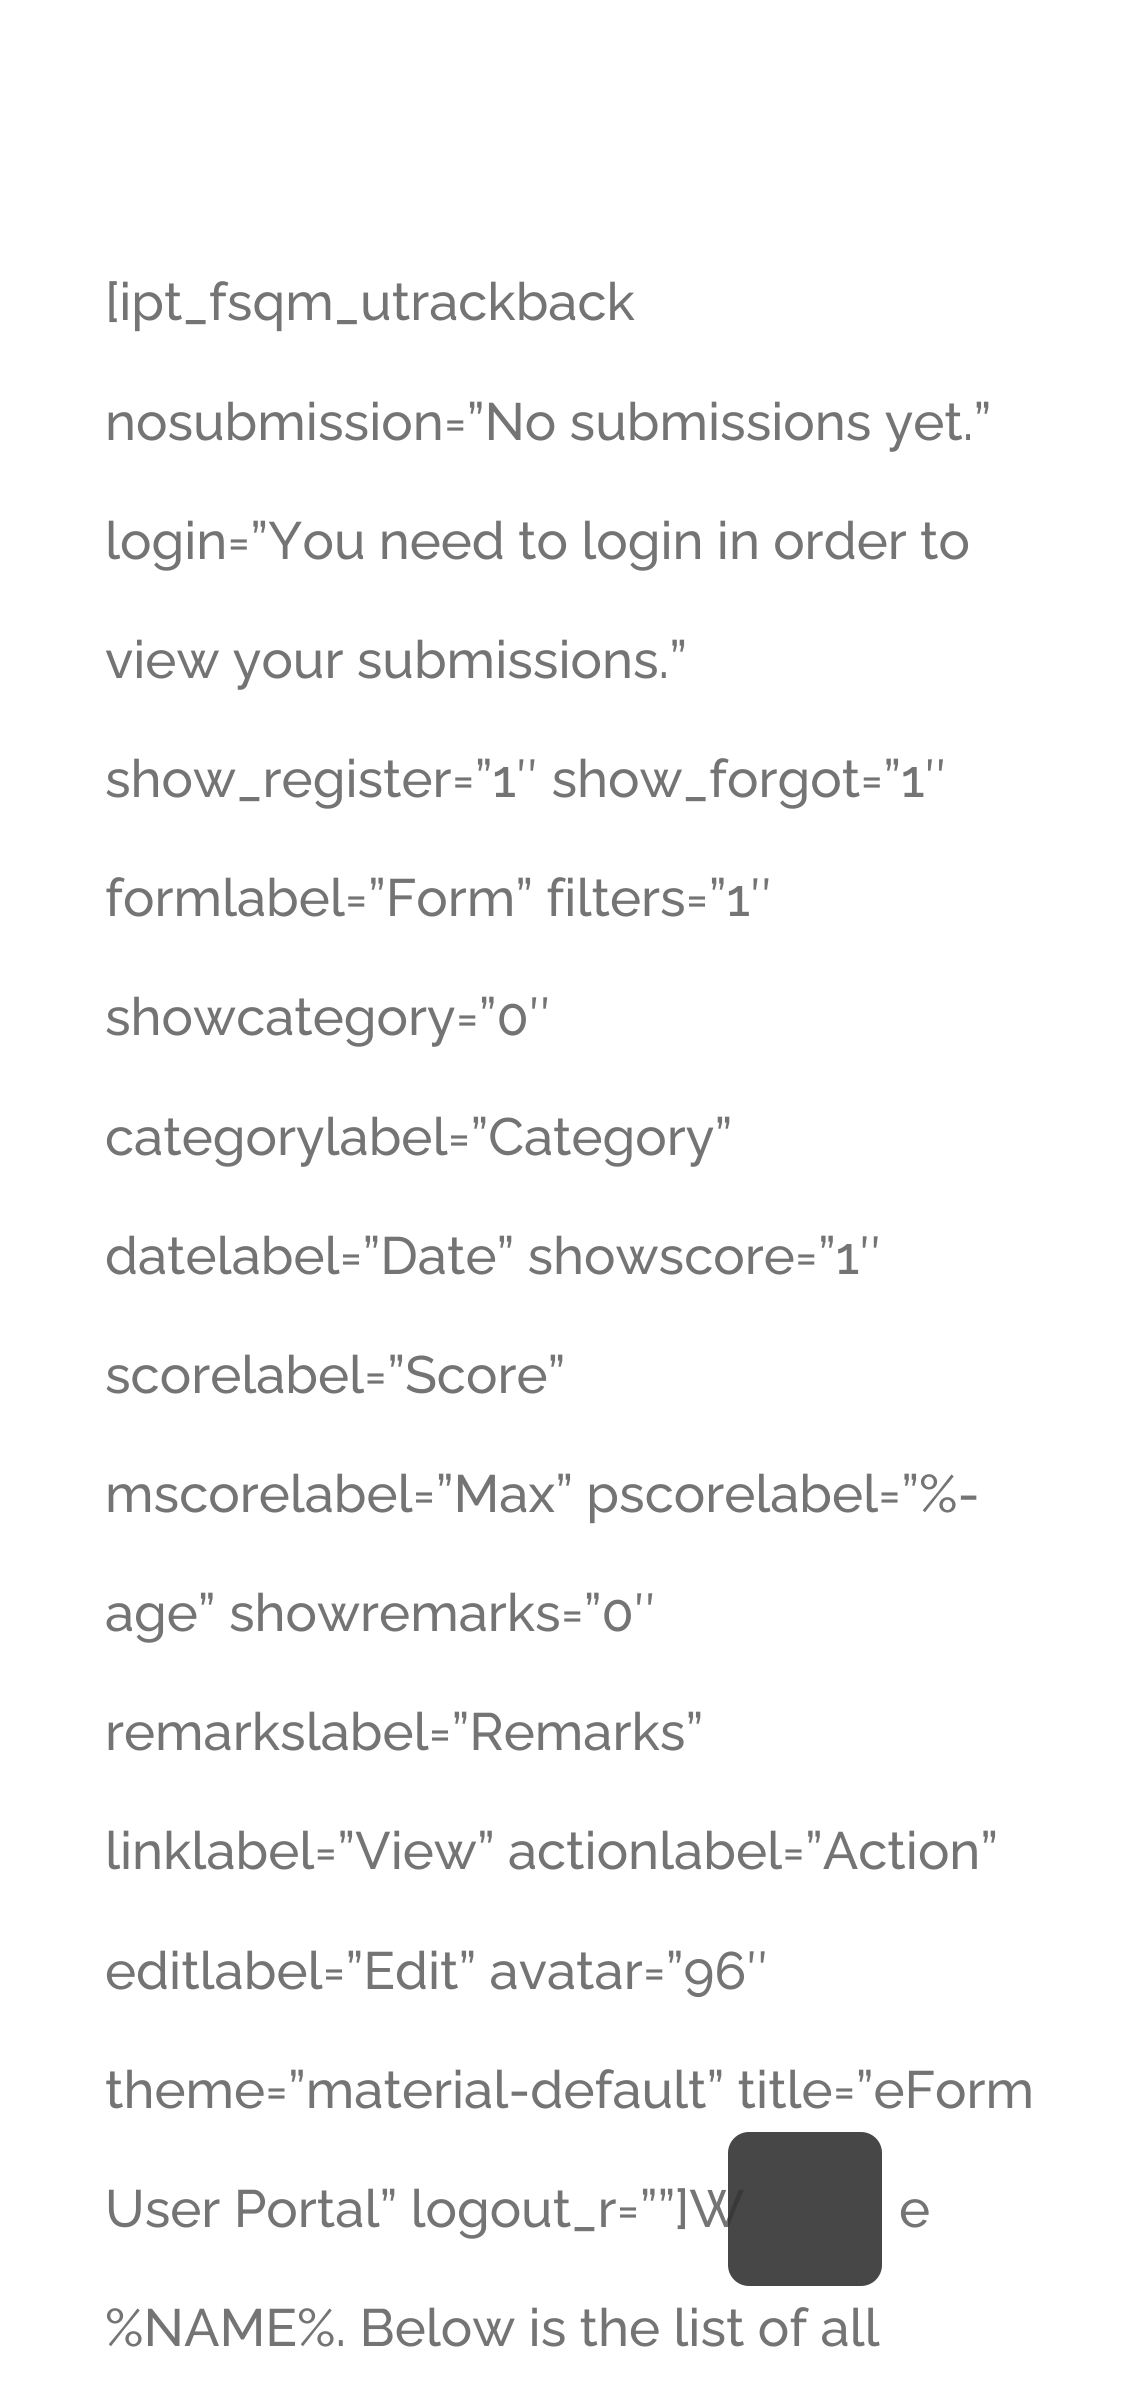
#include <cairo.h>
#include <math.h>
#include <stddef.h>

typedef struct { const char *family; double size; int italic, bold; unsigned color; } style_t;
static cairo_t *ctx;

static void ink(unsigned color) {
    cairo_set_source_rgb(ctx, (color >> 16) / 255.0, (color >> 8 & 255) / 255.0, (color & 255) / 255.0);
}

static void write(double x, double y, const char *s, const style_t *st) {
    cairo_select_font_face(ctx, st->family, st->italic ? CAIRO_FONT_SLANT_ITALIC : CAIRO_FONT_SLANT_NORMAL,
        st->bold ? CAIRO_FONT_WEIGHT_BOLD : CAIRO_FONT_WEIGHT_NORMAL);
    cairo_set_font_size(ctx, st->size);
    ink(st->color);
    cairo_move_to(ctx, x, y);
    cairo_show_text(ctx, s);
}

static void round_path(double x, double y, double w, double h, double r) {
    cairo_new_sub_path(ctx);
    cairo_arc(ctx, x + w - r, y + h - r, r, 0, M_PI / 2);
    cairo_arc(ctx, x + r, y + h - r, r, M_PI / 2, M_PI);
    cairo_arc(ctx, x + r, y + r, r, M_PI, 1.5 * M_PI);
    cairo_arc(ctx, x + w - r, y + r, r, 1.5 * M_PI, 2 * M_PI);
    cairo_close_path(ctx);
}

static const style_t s1 = {"Raleway Medium", 52.5, 0, 0, 0x747474};

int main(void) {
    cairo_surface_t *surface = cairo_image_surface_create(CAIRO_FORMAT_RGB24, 1142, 2390);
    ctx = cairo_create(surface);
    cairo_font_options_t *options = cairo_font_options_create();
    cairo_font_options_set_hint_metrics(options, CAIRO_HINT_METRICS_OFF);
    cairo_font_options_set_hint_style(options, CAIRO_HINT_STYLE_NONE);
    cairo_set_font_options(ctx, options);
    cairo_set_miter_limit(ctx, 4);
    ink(0xffffff);
    cairo_paint(ctx);
    write(105, 320, "[ipt_fsqm_utrackback", &s1);
    write(105, 440, "nosubmission=”No submissions yet.”", &s1);
    write(105, 559, "login=”You need to login in order to", &s1);
    write(105, 678, "view your submissions.”", &s1);
    write(105, 797, "show_register=”1″ show_forgot=”1″", &s1);
    write(105, 916, "formlabel=”Form” filters=”1″", &s1);
    write(105, 1035, "showcategory=”0″", &s1);
    write(105, 1155, "categorylabel=”Category”", &s1);
    write(105, 1274, "datelabel=”Date” showscore=”1″", &s1);
    write(105, 1393, "scorelabel=”Score”", &s1);
    write(105, 1512, "mscorelabel=”Max” pscorelabel=”%-", &s1);
    write(105, 1631, "age” showremarks=”0″", &s1);
    write(105, 1750, "remarkslabel=”Remarks”", &s1);
    write(105, 1869, "linklabel=”View” actionlabel=”Action”", &s1);
    write(105, 1989, "editlabel=”Edit” avatar=”96″", &s1);
    write(105, 2108, "theme=”material-default” title=”eForm", &s1);
    write(105, 2227, "User Portal” logout_r=””]W", &s1);
    write(899, 2227, "e", &s1);
    write(105, 2346, "%NAME%. Below is the list of all", &s1);
    cairo_set_source_rgba(ctx, 0.2, 0.2, 0.2, 0.9);
    round_path(728, 2132, 154, 154, 21);
    cairo_fill(ctx);
    cairo_surface_write_to_png(surface, "screenshot.png");
    cairo_font_options_destroy(options);
    cairo_destroy(ctx);
    cairo_surface_destroy(surface);
    return 0;
}
